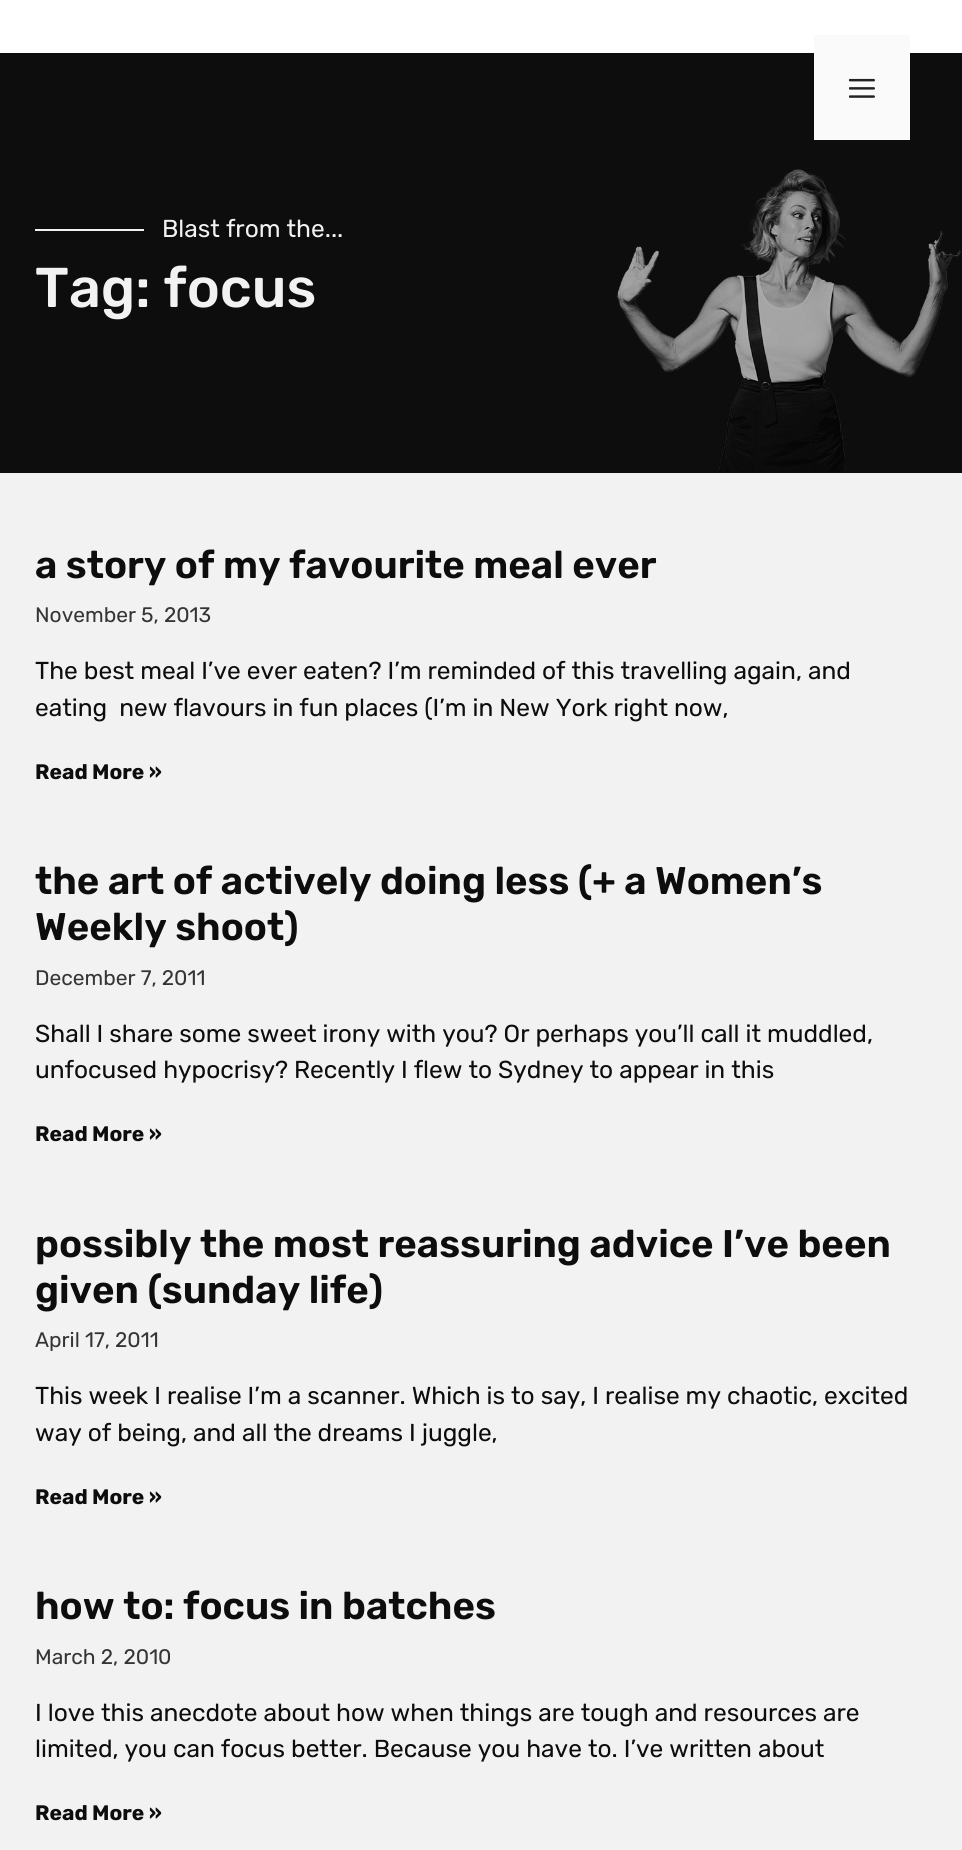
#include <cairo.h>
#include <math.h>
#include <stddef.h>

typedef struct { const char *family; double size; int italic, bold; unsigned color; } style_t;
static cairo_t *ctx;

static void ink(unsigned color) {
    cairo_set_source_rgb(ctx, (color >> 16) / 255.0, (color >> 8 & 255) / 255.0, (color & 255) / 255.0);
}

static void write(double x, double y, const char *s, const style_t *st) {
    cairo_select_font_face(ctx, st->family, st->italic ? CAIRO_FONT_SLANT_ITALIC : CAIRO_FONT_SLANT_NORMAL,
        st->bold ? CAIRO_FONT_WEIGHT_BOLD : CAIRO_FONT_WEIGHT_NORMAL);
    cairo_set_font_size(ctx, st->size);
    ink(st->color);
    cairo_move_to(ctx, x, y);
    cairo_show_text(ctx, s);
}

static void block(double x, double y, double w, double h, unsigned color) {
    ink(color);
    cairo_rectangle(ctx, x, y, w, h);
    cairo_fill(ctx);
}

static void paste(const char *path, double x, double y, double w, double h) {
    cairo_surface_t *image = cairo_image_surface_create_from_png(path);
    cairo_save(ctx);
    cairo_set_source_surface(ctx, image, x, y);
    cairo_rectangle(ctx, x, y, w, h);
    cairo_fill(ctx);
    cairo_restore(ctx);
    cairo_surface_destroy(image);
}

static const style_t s1 = {"Rubik", 24.5, 0, 0, 0xf2f2f2};
static const style_t s2 = {"Rubik Medium", 56, 0, 0, 0xf2f2f2};
static const style_t s3 = {"Rubik SemiBold", 38.5, 0, 0, 0x0d0d0d};
static const style_t s4 = {"Rubik", 21, 0, 0, 0x353535};
static const style_t s5 = {"Rubik", 24.5, 0, 0, 0x0d0d0d};
static const style_t s6 = {"Rubik", 21, 0, 1, 0x0d0d0d};

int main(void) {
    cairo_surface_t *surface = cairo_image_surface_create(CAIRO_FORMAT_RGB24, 962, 1850);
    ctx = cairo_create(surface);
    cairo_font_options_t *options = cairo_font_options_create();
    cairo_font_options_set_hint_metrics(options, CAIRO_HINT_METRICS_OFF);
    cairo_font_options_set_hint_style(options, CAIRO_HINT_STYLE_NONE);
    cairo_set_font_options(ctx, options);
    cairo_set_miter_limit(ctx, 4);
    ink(0xf2f2f2);
    cairo_paint(ctx);
    block(0, 0, 962, 53, 0xffffff);
    block(0, 53, 962, 420, 0x0d0d0d);
    block(814, 35, 96, 105, 0xfafafa);
    paste("pic1.png", 849, 78, 26, 20);
    block(35, 229, 109, 2, 0xf2f2f2);
    write(162, 237, "Blast from the...", &s1);
    write(35, 307, "Tag: focus", &s2);
    paste("pic2.png", 617, 169, 344, 303);
    write(35, 578, "a story of my favourite meal ever", &s3);
    write(35, 622, "November 5, 2013", &s4);
    write(35, 679, "The best meal I’ve ever eaten? I’m reminded of this travelling again, and", &s5);
    write(35, 716, "eating  new flavours in fun places (I’m in New York right now,", &s5);
    write(35, 779, "Read More »", &s6);
    write(35, 894, "the art of actively doing less (+ a Women’s", &s3);
    write(35, 940, "Weekly shoot)", &s3);
    write(35, 985, "December 7, 2011", &s4);
    write(35, 1042, "Shall I share some sweet irony with you? Or perhaps you’ll call it muddled,", &s5);
    write(35, 1078, "unfocused hypocrisy? Recently I flew to Sydney to appear in this", &s5);
    write(35, 1141, "Read More »", &s6);
    write(35, 1257, "possibly the most reassuring advice I’ve been", &s3);
    write(35, 1303, "given (sunday life)", &s3);
    write(35, 1347, "April 17, 2011", &s4);
    write(35, 1404, "This week I realise I’m a scanner. Which is to say, I realise my chaotic, excited", &s5);
    write(35, 1441, "way of being, and all the dreams I juggle,", &s5);
    write(35, 1504, "Read More »", &s6);
    write(35, 1619, "how to: focus in batches", &s3);
    write(35, 1664, "March 2, 2010", &s4);
    write(35, 1721, "I love this anecdote about how when things are tough and resources are", &s5);
    write(35, 1757, "limited, you can focus better. Because you have to. I’ve written about", &s5);
    write(35, 1820, "Read More »", &s6);
    cairo_surface_write_to_png(surface, "screenshot.png");
    cairo_font_options_destroy(options);
    cairo_destroy(ctx);
    cairo_surface_destroy(surface);
    return 0;
}
